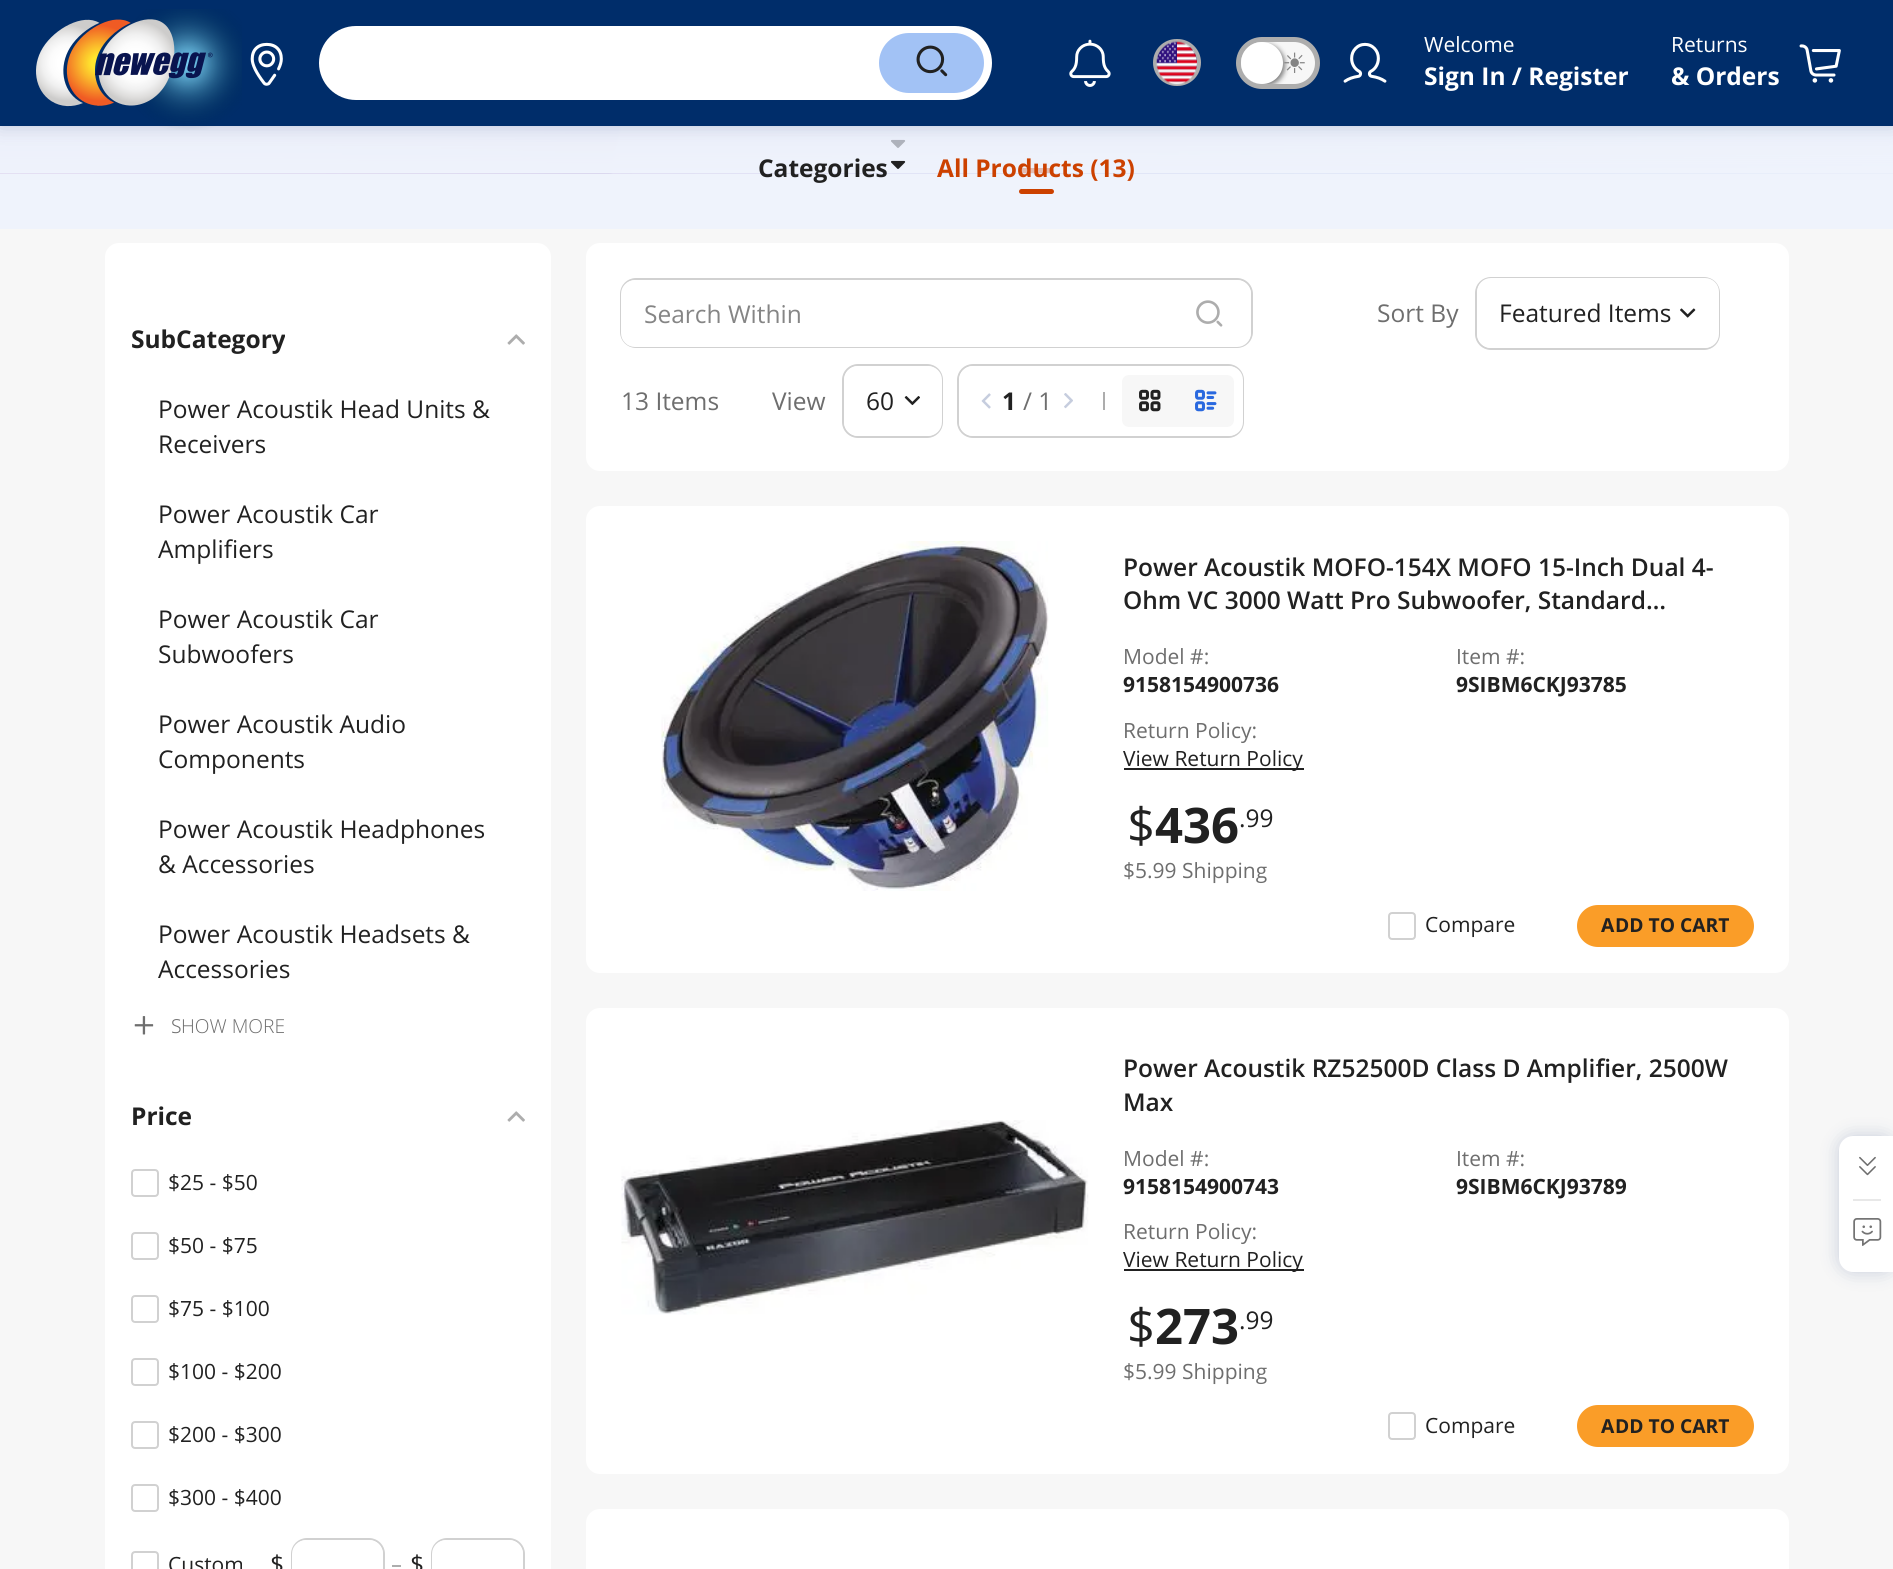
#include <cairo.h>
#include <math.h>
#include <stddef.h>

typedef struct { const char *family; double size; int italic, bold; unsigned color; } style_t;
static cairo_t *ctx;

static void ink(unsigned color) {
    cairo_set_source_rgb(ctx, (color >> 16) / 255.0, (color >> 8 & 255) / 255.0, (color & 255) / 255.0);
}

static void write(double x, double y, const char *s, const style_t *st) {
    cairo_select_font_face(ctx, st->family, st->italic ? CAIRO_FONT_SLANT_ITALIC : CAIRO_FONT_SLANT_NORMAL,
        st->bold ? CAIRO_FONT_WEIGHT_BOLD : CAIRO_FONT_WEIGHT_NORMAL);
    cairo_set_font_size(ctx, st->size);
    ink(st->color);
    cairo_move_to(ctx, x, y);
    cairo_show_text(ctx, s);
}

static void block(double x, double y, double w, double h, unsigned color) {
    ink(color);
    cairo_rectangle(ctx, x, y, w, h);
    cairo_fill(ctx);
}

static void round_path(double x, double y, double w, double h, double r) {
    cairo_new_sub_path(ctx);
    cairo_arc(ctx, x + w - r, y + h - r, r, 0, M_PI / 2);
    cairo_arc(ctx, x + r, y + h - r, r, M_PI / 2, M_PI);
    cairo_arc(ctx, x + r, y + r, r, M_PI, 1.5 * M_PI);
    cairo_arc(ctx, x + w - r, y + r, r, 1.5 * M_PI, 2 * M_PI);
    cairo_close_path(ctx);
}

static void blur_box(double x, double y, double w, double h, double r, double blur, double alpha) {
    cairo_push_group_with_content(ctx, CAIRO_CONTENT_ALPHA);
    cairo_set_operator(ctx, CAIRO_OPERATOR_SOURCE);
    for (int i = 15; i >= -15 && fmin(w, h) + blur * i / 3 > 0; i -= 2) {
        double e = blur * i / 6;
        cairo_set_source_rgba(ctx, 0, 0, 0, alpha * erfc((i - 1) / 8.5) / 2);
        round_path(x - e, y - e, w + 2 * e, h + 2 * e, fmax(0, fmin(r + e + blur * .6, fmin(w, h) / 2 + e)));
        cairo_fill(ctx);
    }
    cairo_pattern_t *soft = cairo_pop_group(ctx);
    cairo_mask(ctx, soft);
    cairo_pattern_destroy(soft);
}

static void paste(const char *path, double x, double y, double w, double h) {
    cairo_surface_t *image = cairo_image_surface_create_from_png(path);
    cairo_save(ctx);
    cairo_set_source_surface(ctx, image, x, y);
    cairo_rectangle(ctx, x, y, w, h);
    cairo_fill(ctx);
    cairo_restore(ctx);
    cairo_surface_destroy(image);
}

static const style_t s1 = {"DejaVu Sans", 28, 0, 0, 0x858585};
static const style_t s2 = {"Open Sans", 21, 0, 0, 0xffffff};
static const style_t s3 = {"Open Sans", 24.5, 0, 1, 0xffffff};
static const style_t s4 = {"Open Sans", 24.5, 0, 1, 0x212121};
static const style_t s5 = {"Open Sans", 24.5, 0, 1, 0xcc4100};
static const style_t s6 = {"Open Sans", 24.5, 0, 0, 0x212121};
static const style_t s7 = {"Noto Sans Light", 19.25, 0, 0, 0x6e6e6e};
static const style_t s8 = {"Open Sans Light", 19.25, 0, 0, 0x6e6e6e};
static const style_t s9 = {"Open Sans", 21, 0, 0, 0x212121};
static const style_t s10 = {"Open Sans", 24.5, 0, 0, 0x858585};
static const style_t s11 = {"Open Sans", 24.5, 0, 0, 0x6e6e6e};
static const style_t s12 = {"Open Sans SemiBold", 24.5, 0, 0, 0x212121};
static const style_t s13 = {"Open Sans", 21, 0, 0, 0x6e6e6e};
static const style_t s14 = {"Open Sans", 21, 0, 1, 0x212121};
static const style_t s15 = {"Open Sans", 49, 0, 0, 0x212121};
static const style_t s16 = {"Open Sans", 49, 0, 1, 0x212121};
static const style_t s17 = {"Noto Sans", 19.25, 0, 1, 0x212121};
static const style_t s18 = {"Open Sans", 19.25, 0, 1, 0x212121};

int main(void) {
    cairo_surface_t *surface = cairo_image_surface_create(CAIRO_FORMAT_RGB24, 1893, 1569);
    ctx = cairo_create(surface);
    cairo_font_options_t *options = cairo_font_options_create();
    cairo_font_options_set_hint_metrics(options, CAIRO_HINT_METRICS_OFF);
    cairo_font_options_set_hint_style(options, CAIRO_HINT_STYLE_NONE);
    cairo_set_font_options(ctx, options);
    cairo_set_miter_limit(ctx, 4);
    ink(0xf7f7f7);
    cairo_paint(ctx);
    paste("pic9.png", 0, 126, 1893, 48);
    paste("pic10.png", 891, 139, 15, 9);
    ink(0xcc4100);
    round_path(1019, 168, 35, 5, 2.5);
    cairo_fill(ctx);
    cairo_set_source_rgba(ctx, 0.925, 0.945, 0.996, 0.7);
    cairo_rectangle(ctx, 0, 126, 1893, 103);
    cairo_fill(ctx);
    ink(0x042062);
    blur_box(0, 0, 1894, 126, 0, 9, 0.2);
    block(0, 0, 1893, 126, 0x002d6a);
    paste("pic1.png", 135, 9, 107, 121);
    paste("pic2.png", 36, 19, 177, 88);
    paste("pic3.png", 250, 42, 33, 44);
    ink(0xffffff);
    round_path(319, 26, 673, 74, 37);
    cairo_fill(ctx);
    ink(0xa2c2f5);
    round_path(879, 33, 105, 60, 30);
    cairo_fill(ctx);
    paste("pic4.png", 916, 45, 32, 32);
    paste("pic5.png", 1069, 39, 42, 48);
    round_path(1155, 41, 44, 43, 21.5);
    ink(0xadadad);
    cairo_set_line_width(ctx, 4);
    cairo_stroke(ctx);
    paste("pic6.png", 1156, 41, 41, 44);
    ink(0xf7f7f7);
    round_path(1238.5, 39.5, 79, 47, 23.5);
    cairo_fill_preserve(ctx);
    ink(0xadadad);
    cairo_set_line_width(ctx, 5);
    cairo_stroke(ctx);
    cairo_save(ctx);
    round_path(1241, 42, 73, 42, 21);
    cairo_clip(ctx);
    ink(0x000000);
    blur_box(1243, 44, 42, 42, 21, 2.5, 0.5);
    cairo_restore(ctx);
    ink(0xffffff);
    cairo_arc(ctx, 1262, 63, 21, 0, 2 * M_PI);
    cairo_fill(ctx);
    write(1282, 73, "☀", &s1);
    paste("pic7.png", 1343, 42, 44, 41);
    write(1424, 52, "Welcome", &s2);
    write(1424, 85, "Sign In / Register", &s3);
    write(1671, 52, "Returns", &s2);
    write(1671, 85, "& Orders", &s3);
    paste("pic8.png", 1799, 44, 42, 39);
    write(758, 177, "Categories", &s4);
    paste("pic11.png", 891, 160, 15, 9);
    write(937, 177, "All Products (13)", &s5);
    round_path(1019, 189, 35, 5, 2.5);
    cairo_fill(ctx);
    ink(0xffffff);
    round_path(105, 243, 446, 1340, 14);
    cairo_fill(ctx);
    cairo_save(ctx);
    cairo_rectangle(ctx, 131, 322, 154, 35);
    cairo_clip(ctx);
    write(131, 348, "SubCategory", &s4);
    cairo_restore(ctx);
    paste("pic12.png", 507, 334, 18, 11);
    write(158, 418, "Power Acoustik Head Units &", &s6);
    write(158, 453, "Receivers", &s6);
    write(158, 523, "Power Acoustik Car", &s6);
    write(158, 558, "Amplifiers", &s6);
    write(158, 628, "Power Acoustik Car", &s6);
    write(158, 663, "Subwoofers", &s6);
    write(158, 733, "Power Acoustik Audio", &s6);
    write(158, 768, "Components", &s6);
    write(158, 838, "Power Acoustik Headphones", &s6);
    write(158, 873, "& Accessories", &s6);
    write(158, 943, "Power Acoustik Headsets &", &s6);
    write(158, 978, "Accessories", &s6);
    paste("pic13.png", 134, 1016, 20, 19);
    write(171, 1033, "S", &s7);
    write(181, 1033, "HOW MORE", &s8);
    write(131, 1125, "Price", &s4);
    paste("pic12.png", 507, 1111, 18, 11);
    round_path(132, 1170, 26, 26, 3);
    ink(0xd1d1d1);
    cairo_set_line_width(ctx, 2);
    cairo_stroke(ctx);
    write(168, 1190, "$25 - $50", &s9);
    round_path(132, 1233, 26, 26, 3);
    ink(0xd1d1d1);
    cairo_stroke(ctx);
    write(168, 1253, "$50 - $75", &s9);
    round_path(132, 1296, 26, 26, 3);
    ink(0xd1d1d1);
    cairo_stroke(ctx);
    write(168, 1316, "$75 - $100", &s9);
    round_path(132, 1359, 26, 26, 3);
    ink(0xd1d1d1);
    cairo_stroke(ctx);
    write(168, 1379, "$100 - $200", &s9);
    round_path(132, 1422, 26, 26, 3);
    ink(0xd1d1d1);
    cairo_stroke(ctx);
    write(168, 1442, "$200 - $300", &s9);
    round_path(132, 1485, 26, 26, 3);
    ink(0xd1d1d1);
    cairo_stroke(ctx);
    write(168, 1505, "$300 - $400", &s9);
    round_path(132, 1552, 26, 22, 3);
    ink(0xd1d1d1);
    cairo_stroke(ctx);
    write(168, 1572, "Custom", &s9);
    write(270, 1573, "$", &s6);
    round_path(292, 1539, 92, 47, 15);
    ink(0xd1d1d1);
    cairo_stroke(ctx);
    ink(0xffffff);
    round_path(292, 1540, 91, 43, 14);
    cairo_fill(ctx);
    block(392, 1565, 9, 2, 0xadadad);
    write(410, 1573, "$", &s6);
    round_path(432, 1539, 92, 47, 15);
    ink(0xd1d1d1);
    cairo_stroke(ctx);
    ink(0xffffff);
    round_path(432, 1540, 91, 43, 14);
    cairo_fill(ctx);
    round_path(586, 243, 1203, 228, 14);
    cairo_fill(ctx);
    round_path(621, 279, 631, 68, 15);
    ink(0xd1d1d1);
    cairo_stroke(ctx);
    ink(0xffffff);
    round_path(621, 280, 630, 67, 14);
    cairo_fill(ctx);
    write(644, 323, "Search Within", &s10);
    paste("pic14.png", 1196, 300, 27, 27);
    write(1377, 322, "Sort By", &s11);
    round_path(1476, 278, 243, 71, 15);
    ink(0xd1d1d1);
    cairo_stroke(ctx);
    ink(0xffffff);
    round_path(1477, 278, 242, 70, 14);
    cairo_fill(ctx);
    write(1499, 322, "Featured Items", &s6);
    paste("pic15.png", 1680, 308, 16, 10);
    write(621, 410, "13 Items", &s11);
    write(772, 410, "View", &s11);
    round_path(843, 365, 99, 72, 15);
    ink(0xd1d1d1);
    cairo_stroke(ctx);
    ink(0xffffff);
    round_path(844, 366, 98, 70, 14);
    cairo_fill(ctx);
    write(866, 410, "60", &s6);
    paste("pic16.png", 904, 396, 16, 10);
    round_path(958, 365, 285, 72, 15);
    ink(0xd1d1d1);
    cairo_stroke(ctx);
    ink(0xffffff);
    round_path(959, 366, 284, 70, 14);
    cairo_fill(ctx);
    paste("pic17.png", 981, 393, 10, 16);
    write(1002, 410, "1", &s4);
    write(1023, 410, "/ 1", &s11);
    paste("pic18.png", 1064, 393, 9, 16);
    block(1103, 392, 2, 18, 0xadadad);
    ink(0xf7f7f7);
    round_path(1122, 375, 112, 52, 7);
    cairo_fill(ctx);
    paste("pic19.png", 1139, 389, 22, 23);
    paste("pic20.png", 1195, 389, 22, 23);
    ink(0xffffff);
    round_path(586, 506, 1203, 467, 14);
    cairo_fill(ctx);
    paste("pic21.png", 661, 541, 388, 350);
    write(1123, 576, "Power Acoustik MOFO-154X MOFO 15-Inch Dual 4-", &s12);
    write(1123, 609, "Ohm VC 3000 Watt Pro Subwoofer, Standard…", &s12);
    write(1123, 664, "Model #:", &s13);
    write(1123, 692, "9158154900736", &s14);
    write(1456, 664, "Item #:", &s13);
    write(1456, 692, "9SIBM6CKJ93785", &s14);
    write(1123, 738, "Return Policy:", &s13);
    block(1124, 768, 180, 2, 0x212121);
    write(1123, 766, "View Return Policy", &s9);
    write(1127, 843, "$", &s15);
    write(1155, 843, "436", &s16);
    write(1239, 827, ".99", &s6);
    write(1123, 878, "$5.99 Shipping", &s13);
    round_path(1389, 913, 26, 26, 3);
    ink(0xd1d1d1);
    cairo_stroke(ctx);
    write(1425, 932, "Compare", &s9);
    ink(0xfa9d28);
    round_path(1577, 905, 177, 42, 21);
    cairo_fill(ctx);
    write(1601, 932, "A", &s17);
    write(1615, 932, "DD TO CART", &s18);
    ink(0xffffff);
    round_path(586, 1008, 1203, 466, 14);
    cairo_fill(ctx);
    paste("pic22.png", 621, 1120, 468, 195);
    write(1123, 1077, "Power Acoustik RZ52500D Class D Amplifier, 2500W", &s12);
    write(1123, 1111, "Max", &s12);
    write(1123, 1166, "Model #:", &s13);
    write(1123, 1194, "9158154900743", &s14);
    write(1456, 1166, "Item #:", &s13);
    write(1456, 1194, "9SIBM6CKJ93789", &s14);
    write(1123, 1239, "Return Policy:", &s13);
    block(1124, 1269, 180, 2, 0x212121);
    write(1123, 1267, "View Return Policy", &s9);
    write(1127, 1344, "$", &s15);
    write(1155, 1344, "273", &s16);
    write(1239, 1329, ".99", &s6);
    write(1123, 1379, "$5.99 Shipping", &s13);
    round_path(1389, 1413, 26, 26, 3);
    ink(0xd1d1d1);
    cairo_stroke(ctx);
    write(1425, 1433, "Compare", &s9);
    ink(0xfa9d28);
    round_path(1577, 1405, 177, 42, 21);
    cairo_fill(ctx);
    write(1601, 1433, "A", &s17);
    write(1615, 1433, "DD TO CART", &s18);
    ink(0xffffff);
    round_path(586, 1509, 1203, 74, 14);
    cairo_fill(ctx);
    ink(0x042062);
    blur_box(1839, 1136, 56, 136, 14, 9, 0.2);
    ink(0xffffff);
    cairo_new_path(ctx);
    cairo_move_to(ctx, 1853, 1136);
    cairo_line_to(ctx, 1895, 1136);
    cairo_line_to(ctx, 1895, 1272);
    cairo_line_to(ctx, 1853, 1272);
    cairo_curve_to(ctx, 1845.5, 1272, 1839, 1265.5, 1839, 1258);
    cairo_line_to(ctx, 1839, 1150);
    cairo_curve_to(ctx, 1839, 1142.5, 1845.5, 1136, 1853, 1136);
    cairo_close_path(ctx);
    cairo_fill(ctx);
    paste("pic23.png", 1859, 1156, 17, 20);
    block(1853, 1199, 28, 2, 0xe8e8e8);
    paste("pic24.png", 1853, 1218, 29, 28);
    cairo_surface_write_to_png(surface, "screenshot.png");
    cairo_font_options_destroy(options);
    cairo_destroy(ctx);
    cairo_surface_destroy(surface);
    return 0;
}
